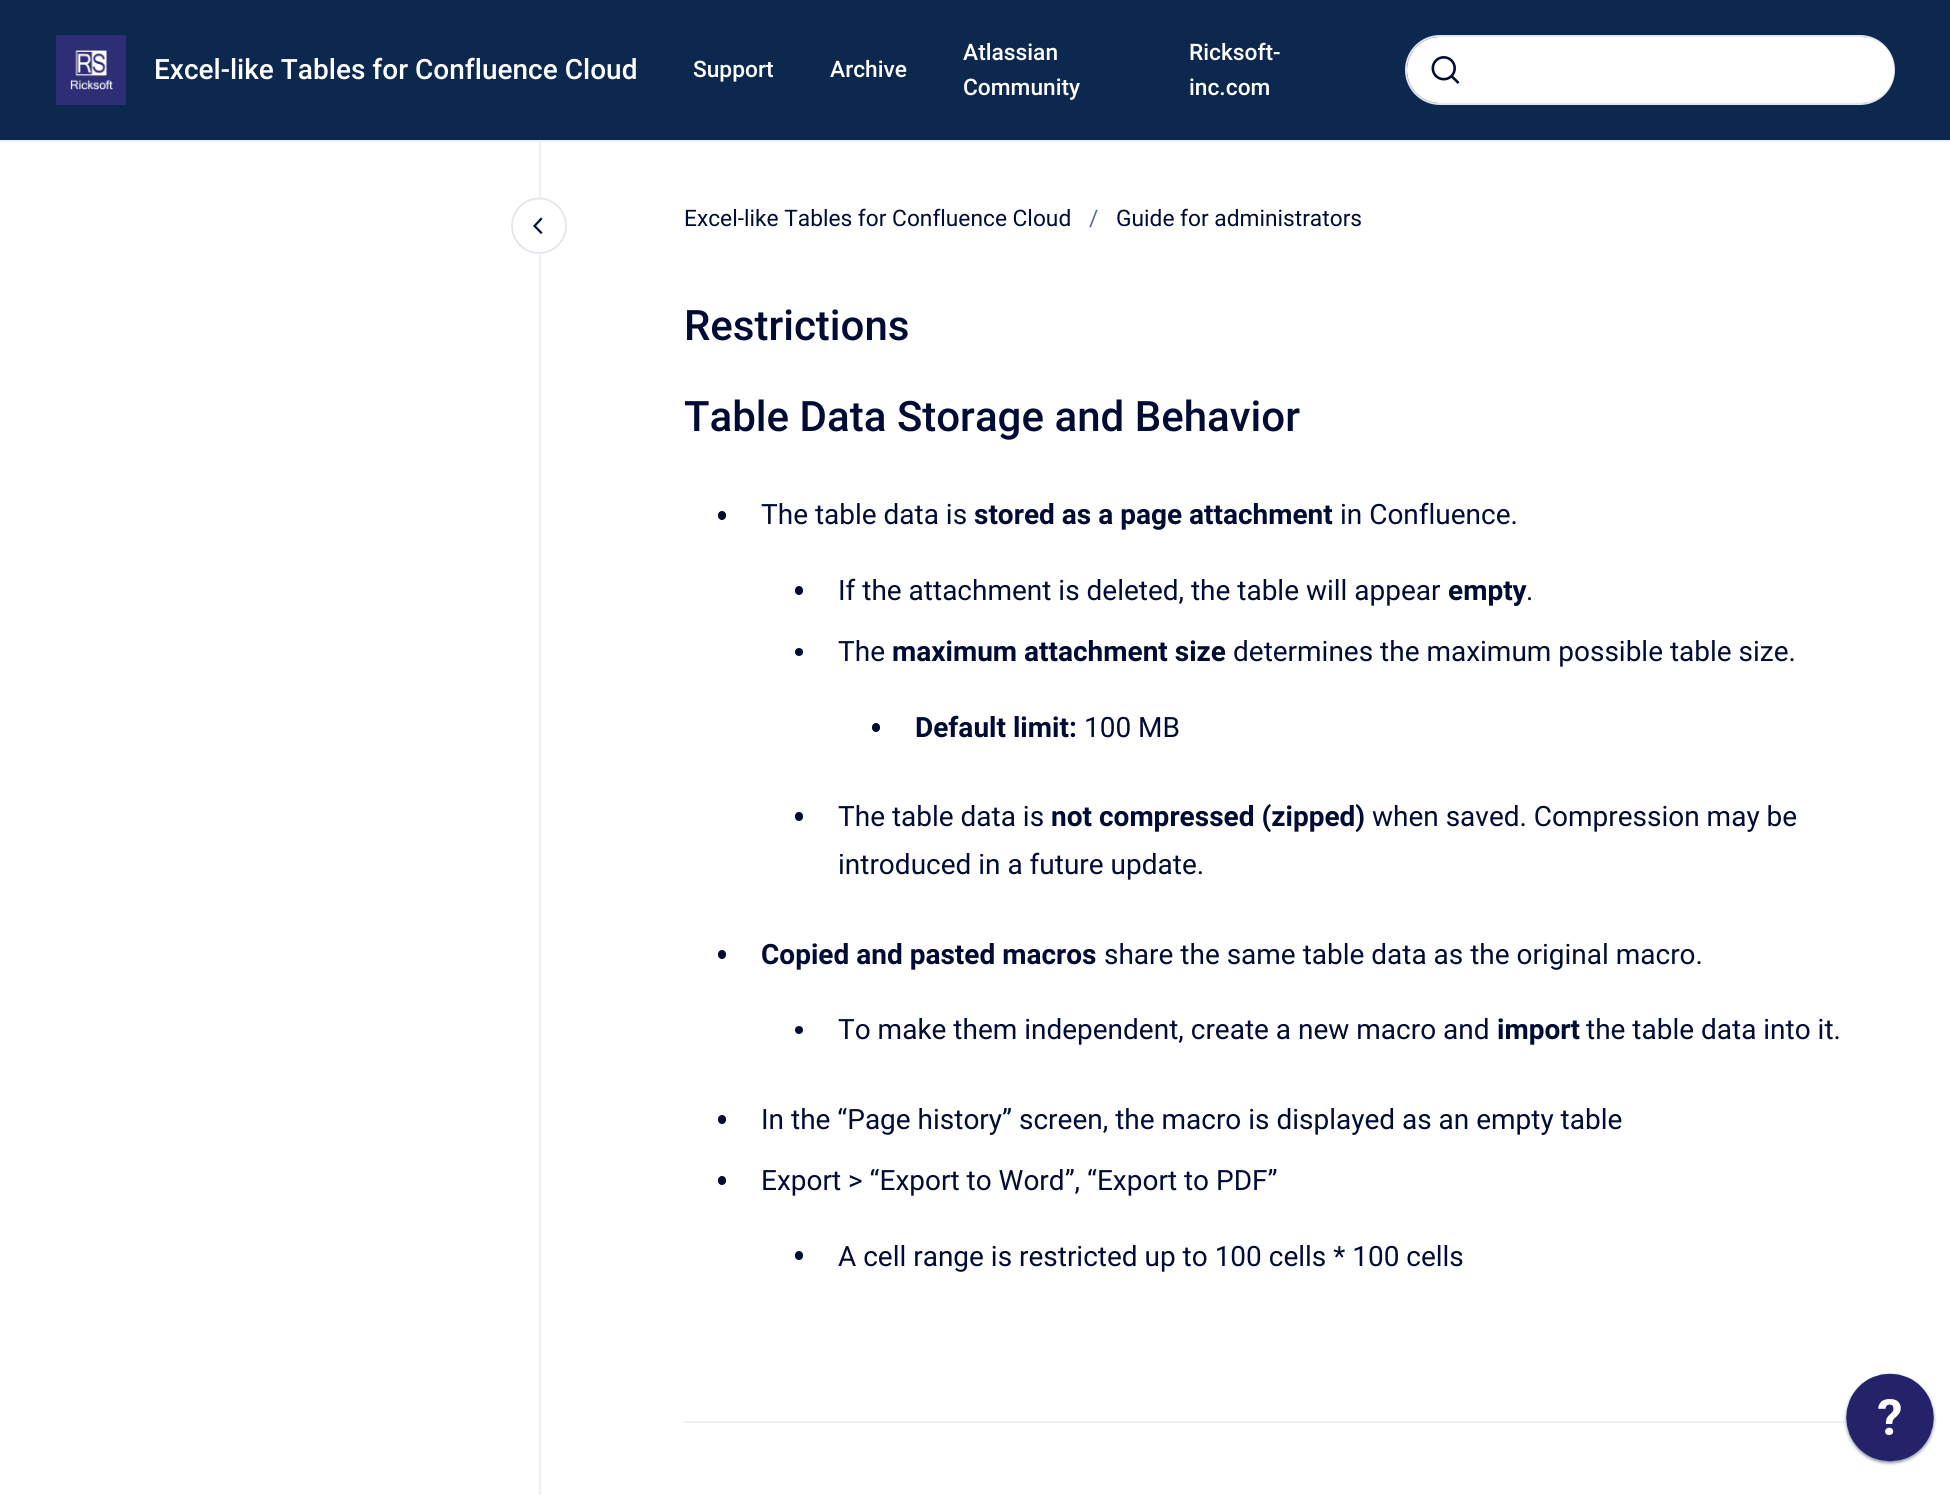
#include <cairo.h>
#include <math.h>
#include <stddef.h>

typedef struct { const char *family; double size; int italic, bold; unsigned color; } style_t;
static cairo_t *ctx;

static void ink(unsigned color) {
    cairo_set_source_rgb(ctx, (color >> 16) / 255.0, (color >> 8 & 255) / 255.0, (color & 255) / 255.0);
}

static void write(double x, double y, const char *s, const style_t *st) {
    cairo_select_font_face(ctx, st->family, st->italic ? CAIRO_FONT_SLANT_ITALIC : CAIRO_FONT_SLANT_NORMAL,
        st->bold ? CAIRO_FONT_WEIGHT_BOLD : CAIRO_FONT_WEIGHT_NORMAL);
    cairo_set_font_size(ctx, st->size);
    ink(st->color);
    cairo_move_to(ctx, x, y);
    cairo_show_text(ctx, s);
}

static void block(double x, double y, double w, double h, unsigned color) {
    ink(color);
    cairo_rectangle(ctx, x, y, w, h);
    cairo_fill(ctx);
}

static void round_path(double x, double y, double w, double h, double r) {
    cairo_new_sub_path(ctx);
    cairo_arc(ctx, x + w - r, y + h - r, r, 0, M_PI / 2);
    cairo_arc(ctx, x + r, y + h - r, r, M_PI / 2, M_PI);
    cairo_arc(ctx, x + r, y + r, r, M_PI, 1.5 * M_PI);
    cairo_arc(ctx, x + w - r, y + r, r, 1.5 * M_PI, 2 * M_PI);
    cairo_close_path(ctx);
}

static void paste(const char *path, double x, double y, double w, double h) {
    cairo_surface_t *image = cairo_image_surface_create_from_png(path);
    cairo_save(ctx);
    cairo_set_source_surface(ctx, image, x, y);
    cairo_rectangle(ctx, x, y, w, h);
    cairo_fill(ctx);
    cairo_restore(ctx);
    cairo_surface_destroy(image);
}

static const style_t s1 = {"Roboto Medium", 28, 0, 0, 0xffffff};
static const style_t s2 = {"Roboto Medium", 22.75, 0, 0, 0xffffff};
static const style_t s3 = {"Roboto", 22.75, 0, 0, 0x000c34};
static const style_t s4 = {"Roboto", 22.75, 0, 0, 0x5d6b8f};
static const style_t s5 = {"Roboto Medium", 42, 0, 0, 0x000c34};
static const style_t s6 = {"Roboto", 28, 0, 0, 0x000c34};
static const style_t s7 = {"Roboto", 28, 0, 1, 0x000c34};

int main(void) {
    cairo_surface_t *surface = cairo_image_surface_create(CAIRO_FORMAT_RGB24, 1950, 1495);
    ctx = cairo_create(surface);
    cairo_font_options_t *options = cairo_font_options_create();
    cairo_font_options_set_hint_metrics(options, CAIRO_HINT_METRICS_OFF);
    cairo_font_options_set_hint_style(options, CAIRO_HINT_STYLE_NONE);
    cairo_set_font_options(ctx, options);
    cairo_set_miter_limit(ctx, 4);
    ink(0xffffff);
    cairo_paint(ctx);
    block(0, 0, 1950, 140, 0x0d284f);
    block(0, 140, 1950, 2, 0xeff0f4);
    paste("pic1.png", 56, 35, 70, 70);
    write(154, 79, "Excel-like Tables for Confluence Cloud", &s1);
    write(693, 77, "Support", &s2);
    write(830, 77, "Archive", &s2);
    write(963, 60, "Atlassian", &s2);
    write(963, 95, "Community", &s2);
    write(1189, 60, "Ricksoft-", &s2);
    write(1189, 95, "inc.com", &s2);
    round_path(1406, 36, 488, 68, 34);
    ink(0xe2e5eb);
    cairo_stroke(ctx);
    ink(0xffffff);
    round_path(1407, 37, 487, 66, 33);
    cairo_fill(ctx);
    paste("pic2.png", 1431, 56, 29, 28);
    block(539, 142, 2, 1353, 0xeff0f4);
    ink(0xffffff);
    cairo_new_path(ctx);
    cairo_move_to(ctx, 539, 254);
    cairo_curve_to(ctx, 524, 254, 511, 241, 511, 226);
    cairo_curve_to(ctx, 511, 210, 524, 198, 539, 198);
    cairo_curve_to(ctx, 554, 198, 567, 210, 567, 226);
    cairo_curve_to(ctx, 567, 241, 554, 254, 539, 254);
    cairo_close_path(ctx);
    cairo_fill(ctx);
    cairo_new_path(ctx);
    cairo_move_to(ctx, 539, 253);
    cairo_curve_to(ctx, 524, 253, 512, 240.5, 512, 226);
    cairo_curve_to(ctx, 512, 211, 524, 198.5, 539, 198.5);
    cairo_curve_to(ctx, 554, 198.5, 566, 211, 566, 226);
    cairo_curve_to(ctx, 566, 240.5, 554, 253, 539, 253);
    cairo_close_path(ctx);
    ink(0xe2e5eb);
    cairo_set_line_width(ctx, 1.8);
    cairo_stroke(ctx);
    cairo_new_path(ctx);
    cairo_move_to(ctx, 541, 232.5);
    cairo_line_to(ctx, 534.5, 226);
    cairo_line_to(ctx, 541, 219);
    ink(0x000c34);
    cairo_set_line_width(ctx, 2.2);
    cairo_set_line_cap(ctx, CAIRO_LINE_CAP_SQUARE);
    cairo_stroke(ctx);
    write(684, 226, "Excel-like Tables for Confluence Cloud", &s3);
    write(1089, 226, "/", &s4);
    write(1116, 226, "Guide for administrators", &s3);
    write(684, 340, "Restrictions", &s5);
    write(684, 431, "Table Data Storage and Behavior", &s5);
    round_path(718, 511, 8, 9, 4);
    cairo_fill(ctx);
    write(761, 524, "The table data is", &s6);
    write(974, 524, "stored as a page attachment", &s7);
    write(1340, 524, "in Confluence.", &s6);
    round_path(795, 586, 8, 9, 4);
    cairo_fill(ctx);
    write(838, 600, "If the attachment is deleted, the table will appear", &s6);
    write(1448, 600, "empty", &s7);
    write(1526, 600, ".", &s6);
    cairo_new_path(ctx);
    cairo_arc(ctx, 799, 652, 4, 0, 2 * M_PI);
    cairo_fill(ctx);
    write(838, 661, "The", &s6);
    write(892, 661, "maximum attachment size", &s7);
    write(1233, 661, "determines the maximum possible table size.", &s6);
    round_path(872, 723, 8, 9, 4);
    cairo_fill(ctx);
    write(915, 737, "Default limit:", &s7);
    write(1084, 737, "100 MB", &s6);
    round_path(795, 812, 8, 9, 4);
    cairo_fill(ctx);
    write(838, 826, "The table data is", &s6);
    write(1051, 826, "not compressed (zipped)", &s7);
    write(1372, 826, "when saved. Compression may be", &s6);
    write(838, 874, "introduced in a future update.", &s6);
    round_path(718, 950, 8, 9, 4);
    cairo_fill(ctx);
    write(761, 964, "Copied and pasted macros", &s7);
    write(1104, 964, "share the same table data as the original macro.", &s6);
    cairo_new_path(ctx);
    cairo_arc(ctx, 799, 1030, 4, 0, 2 * M_PI);
    cairo_fill(ctx);
    write(838, 1039, "To make them independent, create a new macro and", &s6);
    write(1497, 1039, "import", &s7);
    write(1586, 1039, "the table data into it.", &s6);
    round_path(718, 1115, 8, 9, 4);
    cairo_fill(ctx);
    write(761, 1129, "In the “Page history” screen, the macro is displayed as an empty table", &s6);
    round_path(718, 1176, 8, 9, 4);
    cairo_fill(ctx);
    write(761, 1190, "Export > “Export to Word”, “Export to PDF”", &s6);
    round_path(795, 1251, 8, 9, 4);
    cairo_fill(ctx);
    write(838, 1266, "A cell range is restricted up to 100 cells * 100 cells", &s6);
    block(684, 1421, 1163, 2, 0xeff0f4);
    paste("pic3.png", 1843, 1372, 94, 94);
    cairo_surface_write_to_png(surface, "screenshot.png");
    cairo_font_options_destroy(options);
    cairo_destroy(ctx);
    cairo_surface_destroy(surface);
    return 0;
}
